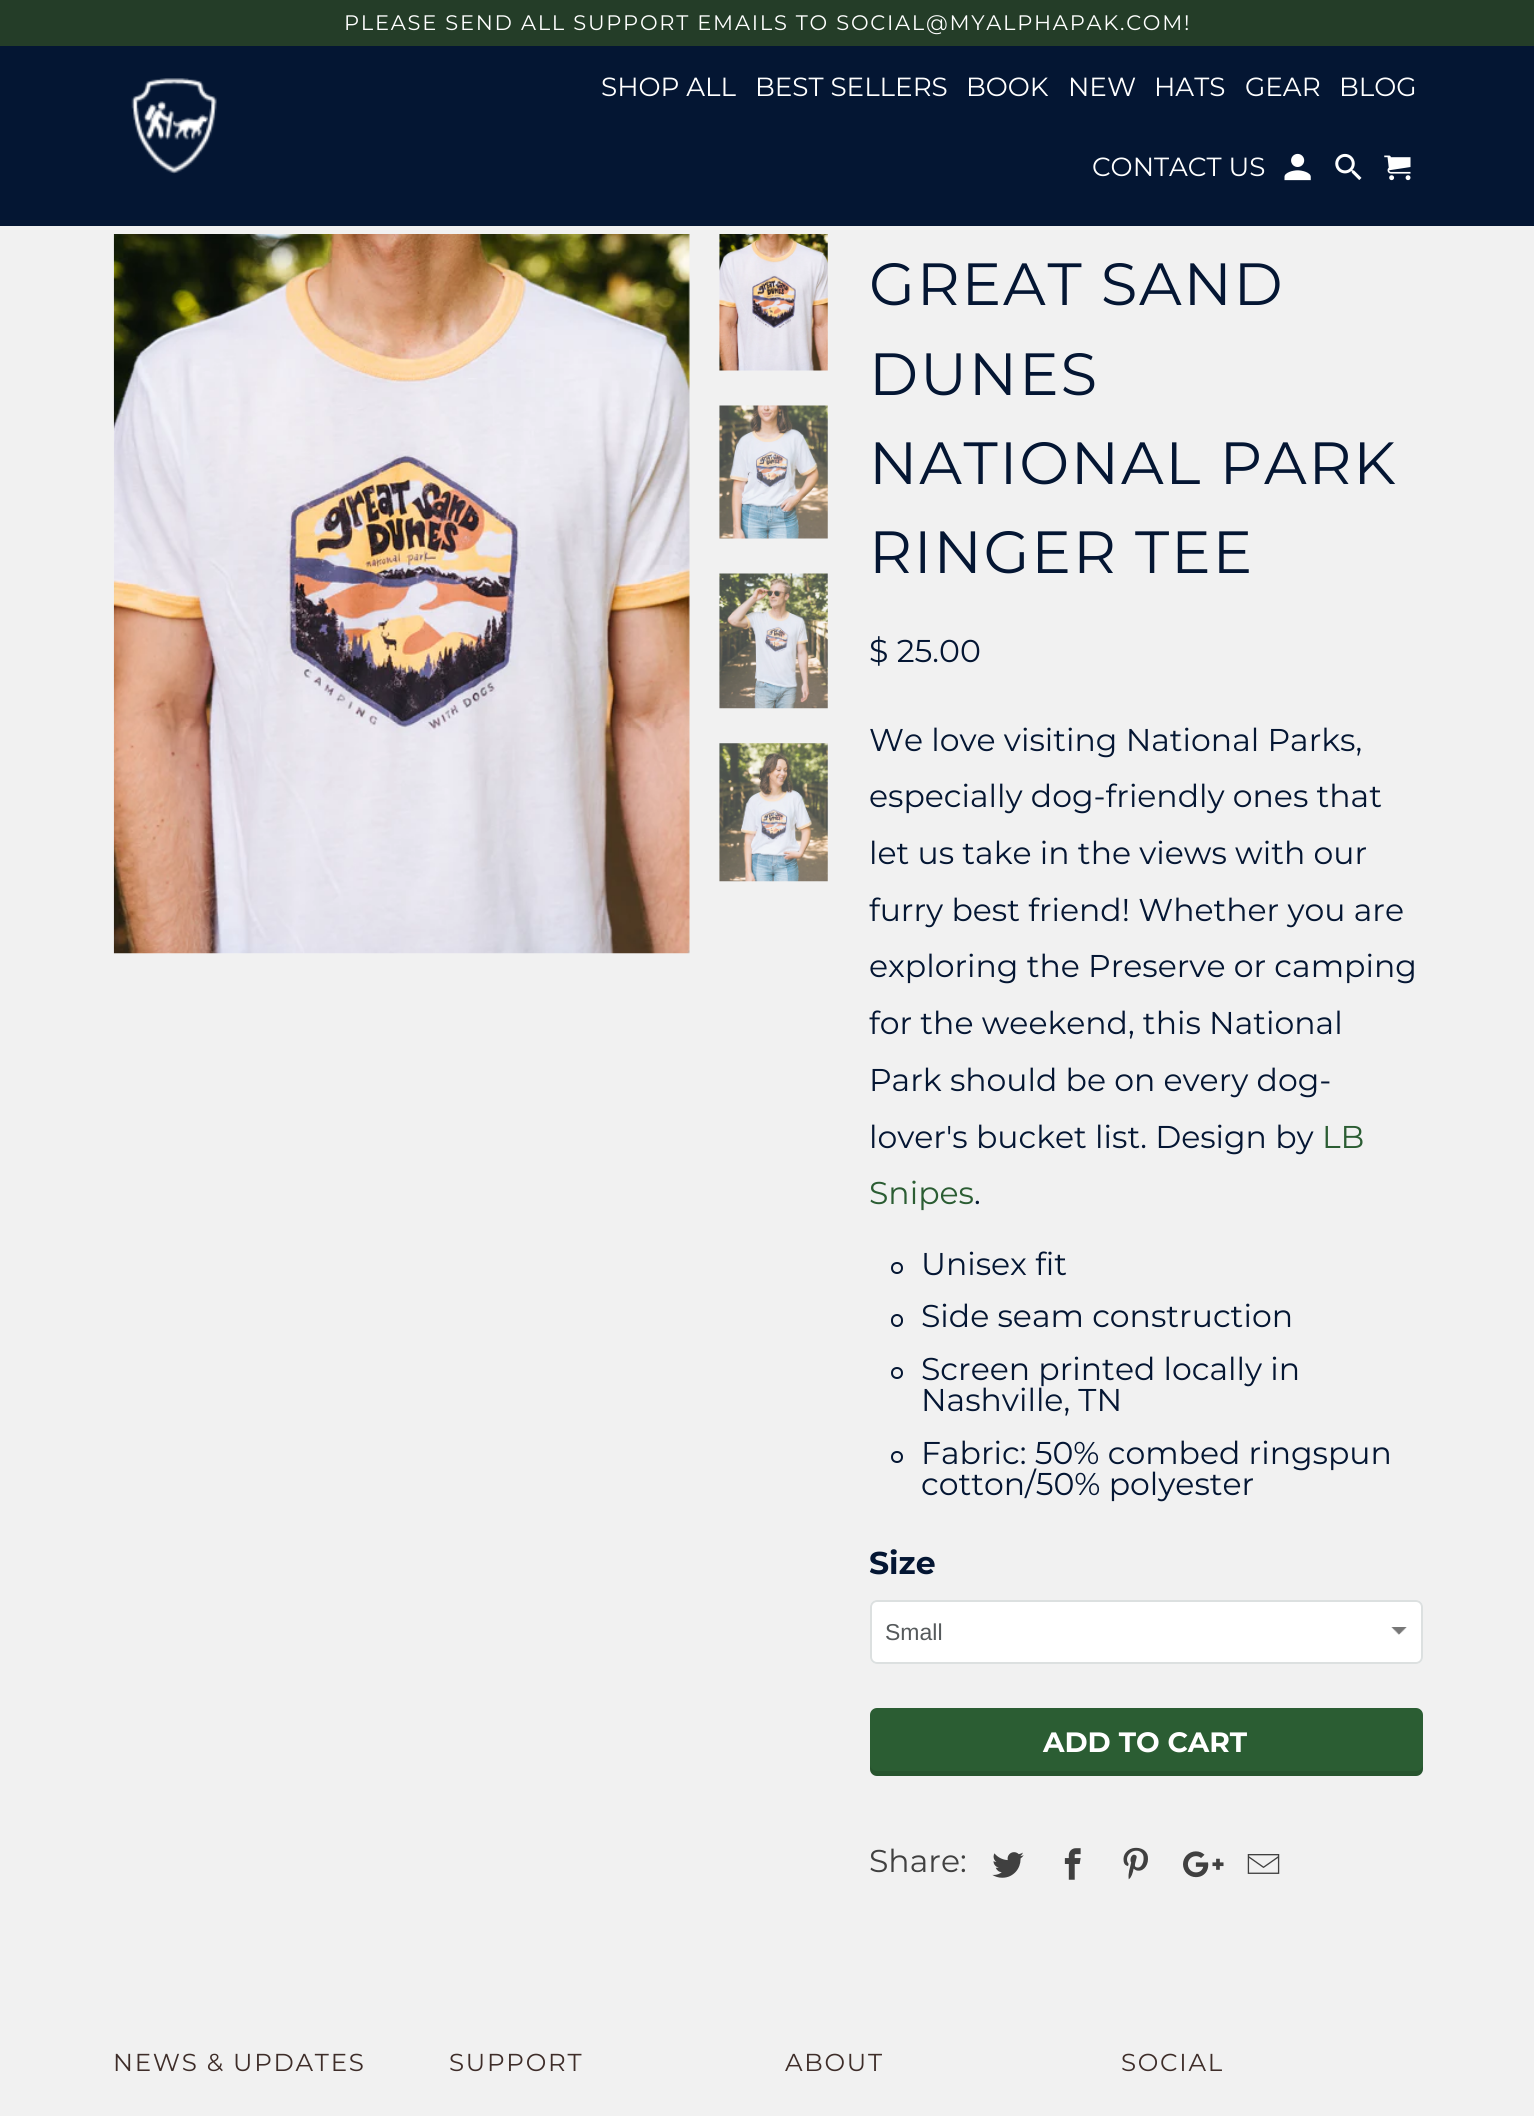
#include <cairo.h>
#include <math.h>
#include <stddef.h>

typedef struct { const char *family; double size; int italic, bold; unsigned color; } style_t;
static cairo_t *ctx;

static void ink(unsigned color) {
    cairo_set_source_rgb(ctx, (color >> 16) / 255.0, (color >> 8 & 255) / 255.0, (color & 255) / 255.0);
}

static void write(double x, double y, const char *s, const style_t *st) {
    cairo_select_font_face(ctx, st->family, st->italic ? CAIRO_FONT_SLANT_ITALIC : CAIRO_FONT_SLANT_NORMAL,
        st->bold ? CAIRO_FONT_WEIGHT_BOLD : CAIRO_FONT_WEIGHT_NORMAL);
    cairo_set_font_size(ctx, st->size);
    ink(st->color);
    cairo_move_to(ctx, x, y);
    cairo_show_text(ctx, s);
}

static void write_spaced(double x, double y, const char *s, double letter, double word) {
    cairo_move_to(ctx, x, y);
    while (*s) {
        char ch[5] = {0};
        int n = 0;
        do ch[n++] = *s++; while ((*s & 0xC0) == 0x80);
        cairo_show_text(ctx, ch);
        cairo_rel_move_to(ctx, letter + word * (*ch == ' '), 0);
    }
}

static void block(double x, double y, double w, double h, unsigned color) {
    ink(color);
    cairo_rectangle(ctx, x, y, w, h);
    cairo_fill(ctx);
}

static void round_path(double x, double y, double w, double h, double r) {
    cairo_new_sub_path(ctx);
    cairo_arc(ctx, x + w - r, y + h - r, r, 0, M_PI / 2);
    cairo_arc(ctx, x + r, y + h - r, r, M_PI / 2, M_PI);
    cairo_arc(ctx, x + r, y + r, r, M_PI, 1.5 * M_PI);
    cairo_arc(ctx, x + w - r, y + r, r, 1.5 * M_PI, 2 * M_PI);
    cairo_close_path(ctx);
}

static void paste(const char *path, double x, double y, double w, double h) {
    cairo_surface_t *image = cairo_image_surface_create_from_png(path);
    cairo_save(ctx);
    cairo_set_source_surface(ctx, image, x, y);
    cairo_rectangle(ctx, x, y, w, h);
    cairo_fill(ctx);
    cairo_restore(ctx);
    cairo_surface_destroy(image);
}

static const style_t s1 = {"Montserrat", 26.25, 0, 0, 0xffffff};
static const style_t s2 = {"Montserrat", 31.5, 0, 0, 0x041633};
static const style_t s3 = {"Montserrat", 31.5, 0, 0, 0x2b5d33};
static const style_t s4 = {"Montserrat", 31.5, 0, 1, 0x041633};
static const style_t s5 = {"Liberation Sans", 23, 0, 0, 0x565a5c};
static const style_t s6 = {"Montserrat", 28, 0, 1, 0xffffff};
static const style_t s7 = {"Montserrat", 31.5, 0, 0, 0x404040};

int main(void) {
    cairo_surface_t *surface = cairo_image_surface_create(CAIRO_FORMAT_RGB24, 1534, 2116);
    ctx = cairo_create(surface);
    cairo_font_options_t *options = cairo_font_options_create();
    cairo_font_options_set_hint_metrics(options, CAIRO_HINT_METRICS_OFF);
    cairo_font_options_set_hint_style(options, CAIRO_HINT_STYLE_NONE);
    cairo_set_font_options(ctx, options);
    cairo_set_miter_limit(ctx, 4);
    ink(0xf1f1f1);
    cairo_paint(ctx);
    block(0, 46, 1534, 180, 0x041633);
    block(0, 0, 1534, 46, 0x243d28);
    cairo_select_font_face(ctx, "Montserrat", CAIRO_FONT_SLANT_NORMAL, CAIRO_FONT_WEIGHT_NORMAL);
    cairo_set_font_size(ctx, 21);
    ink(0xffffff);
    write_spaced(344, 30, "PLEASE SEND ALL SUPPORT EMAILS TO SOCIAL@MYALPHAPAK.COM!", 1.75, 0);
    paste("pic1.png", 131, 78, 86, 96);
    write(601, 96, "SHOP ALL", &s1);
    write(755, 96, "BEST SELLERS", &s1);
    write(966, 96, "BOOK", &s1);
    write(1068, 96, "NEW", &s1);
    write(1154, 96, "HATS", &s1);
    write(1245, 96, "GEAR", &s1);
    write(1339, 96, "BLOG", &s1);
    write(1092, 176, "CONTACT US", &s1);
    paste("pic2.png", 1284, 153, 27, 28);
    paste("pic3.png", 1335, 153, 27, 27);
    paste("pic4.png", 1384, 155, 27, 26);
    paste("pic5.png", 113, 234, 577, 720);
    paste("pic6.png", 719, 234, 109, 137);
    paste("pic7.png", 719, 405, 109, 134);
    paste("pic8.png", 719, 573, 109, 136);
    paste("pic9.png", 719, 743, 109, 139);
    cairo_set_font_size(ctx, 59.5);
    ink(0x041633);
    write_spaced(869, 305, "GREAT SAND", 1.75, 0);
    write_spaced(869, 395, "DUNES", 1.75, 0);
    write_spaced(869, 484, "NATIONAL PARK", 1.75, 0);
    write_spaced(869, 573, "RINGER TEE", 1.75, 0);
    write(869, 662, "$ 25.00", &s2);
    write(869, 751, "We love visiting National Parks,", &s2);
    write(869, 807, "especially dog-friendly ones that", &s2);
    write(869, 864, "let us take in the views with our", &s2);
    write(869, 921, "furry best friend! Whether you are", &s2);
    write(869, 977, "exploring the Preserve or camping", &s2);
    write(869, 1034, "for the weekend, this National", &s2);
    write(869, 1091, "Park should be on every dog-", &s2);
    write(869, 1148, "lover's bucket list. Design by", &s2);
    write(1322, 1148, "LB", &s3);
    write(869, 1204, "Snipes", &s3);
    write(974, 1204, ".", &s2);
    cairo_new_path(ctx);
    cairo_arc(ctx, 897, 1268, 5, 0, 2 * M_PI);
    cairo_stroke(ctx);
    write(921, 1275, "Unisex fit", &s2);
    round_path(892, 1315, 10, 11, 5);
    cairo_stroke(ctx);
    write(921, 1327, "Side seam construction", &s2);
    cairo_new_path(ctx);
    cairo_arc(ctx, 897, 1373, 5, 0, 2 * M_PI);
    cairo_stroke(ctx);
    write(921, 1380, "Screen printed locally in", &s2);
    write(921, 1411, "Nashville, TN", &s2);
    cairo_new_path(ctx);
    cairo_arc(ctx, 897, 1457, 5, 0, 2 * M_PI);
    cairo_stroke(ctx);
    write(921, 1464, "Fabric: 50% combed ringspun", &s2);
    write(921, 1495, "cotton/50% polyester", &s2);
    write(869, 1574, "Size", &s4);
    ink(0xffffff);
    round_path(870, 1600, 553, 64, 7);
    cairo_fill(ctx);
    paste("pic10.png", 1391, 1627, 16, 8);
    round_path(871, 1601, 551, 62, 6);
    ink(0xdce0e0);
    cairo_stroke(ctx);
    write(885, 1640, "Small", &s5);
    ink(0x2b5d33);
    round_path(870, 1708, 553, 68, 7);
    cairo_fill(ctx);
    cairo_set_source_rgba(ctx, 0, 0, 0, 0.1);
    cairo_new_path(ctx);
    cairo_move_to(ctx, 870, 1764);
    cairo_line_to(ctx, 870, 1769);
    cairo_curve_to(ctx, 870, 1773, 873, 1776, 877, 1776);
    cairo_line_to(ctx, 1416, 1776);
    cairo_curve_to(ctx, 1420, 1776, 1423, 1773, 1423, 1769);
    cairo_line_to(ctx, 1423, 1764);
    cairo_curve_to(ctx, 1423, 1768, 1420, 1771, 1416, 1771);
    cairo_line_to(ctx, 877, 1771);
    cairo_curve_to(ctx, 873, 1771, 870, 1768, 870, 1764);
    cairo_close_path(ctx);
    cairo_fill(ctx);
    write(1043, 1752, "ADD TO CART", &s6);
    write(869, 1872, "Share:", &s7);
    paste("pic11.png", 992, 1852, 32, 26);
    paste("pic12.png", 1064, 1848, 17, 32);
    paste("pic13.png", 1123, 1847, 25, 33);
    paste("pic14.png", 1183, 1851, 41, 27);
    paste("pic15.png", 1247, 1854, 33, 20);
    cairo_set_font_size(ctx, 24.5);
    ink(0x3e2d29);
    write_spaced(113, 2071, "NEWS & UPDATES", 1.75, 0);
    write_spaced(449, 2071, "SUPPORT", 1.75, 0);
    write_spaced(785, 2071, "ABOUT", 1.75, 0);
    write_spaced(1121, 2071, "SOCIAL", 1.75, 0);
    cairo_surface_write_to_png(surface, "screenshot.png");
    cairo_font_options_destroy(options);
    cairo_destroy(ctx);
    cairo_surface_destroy(surface);
    return 0;
}
